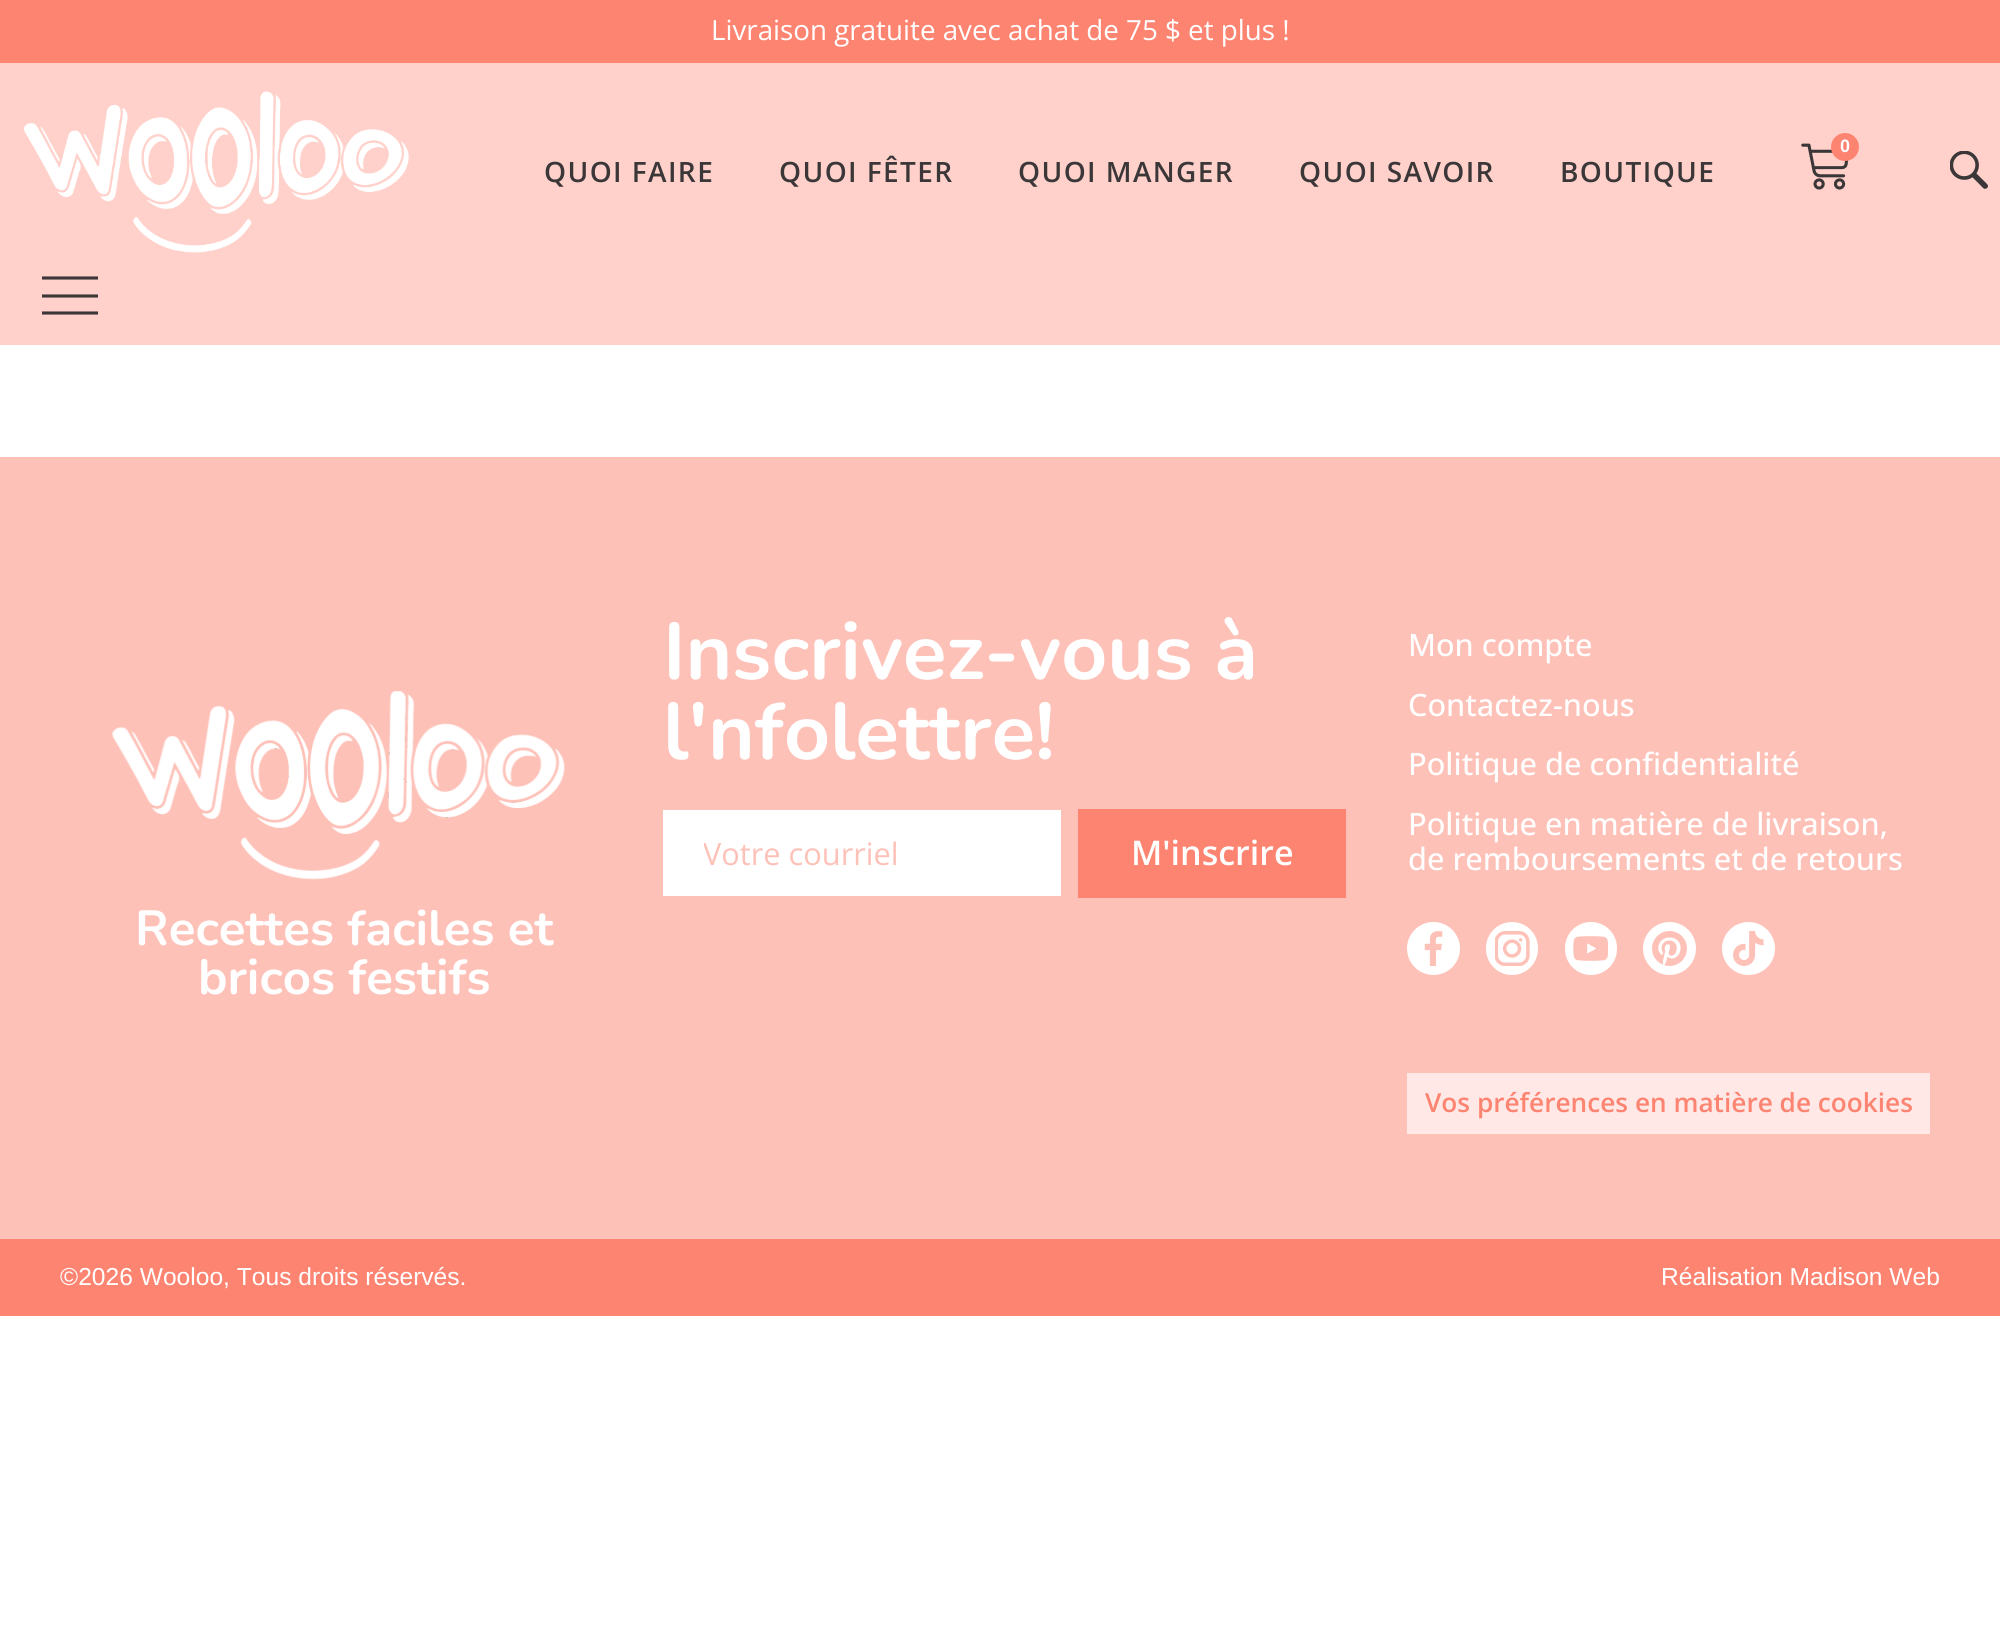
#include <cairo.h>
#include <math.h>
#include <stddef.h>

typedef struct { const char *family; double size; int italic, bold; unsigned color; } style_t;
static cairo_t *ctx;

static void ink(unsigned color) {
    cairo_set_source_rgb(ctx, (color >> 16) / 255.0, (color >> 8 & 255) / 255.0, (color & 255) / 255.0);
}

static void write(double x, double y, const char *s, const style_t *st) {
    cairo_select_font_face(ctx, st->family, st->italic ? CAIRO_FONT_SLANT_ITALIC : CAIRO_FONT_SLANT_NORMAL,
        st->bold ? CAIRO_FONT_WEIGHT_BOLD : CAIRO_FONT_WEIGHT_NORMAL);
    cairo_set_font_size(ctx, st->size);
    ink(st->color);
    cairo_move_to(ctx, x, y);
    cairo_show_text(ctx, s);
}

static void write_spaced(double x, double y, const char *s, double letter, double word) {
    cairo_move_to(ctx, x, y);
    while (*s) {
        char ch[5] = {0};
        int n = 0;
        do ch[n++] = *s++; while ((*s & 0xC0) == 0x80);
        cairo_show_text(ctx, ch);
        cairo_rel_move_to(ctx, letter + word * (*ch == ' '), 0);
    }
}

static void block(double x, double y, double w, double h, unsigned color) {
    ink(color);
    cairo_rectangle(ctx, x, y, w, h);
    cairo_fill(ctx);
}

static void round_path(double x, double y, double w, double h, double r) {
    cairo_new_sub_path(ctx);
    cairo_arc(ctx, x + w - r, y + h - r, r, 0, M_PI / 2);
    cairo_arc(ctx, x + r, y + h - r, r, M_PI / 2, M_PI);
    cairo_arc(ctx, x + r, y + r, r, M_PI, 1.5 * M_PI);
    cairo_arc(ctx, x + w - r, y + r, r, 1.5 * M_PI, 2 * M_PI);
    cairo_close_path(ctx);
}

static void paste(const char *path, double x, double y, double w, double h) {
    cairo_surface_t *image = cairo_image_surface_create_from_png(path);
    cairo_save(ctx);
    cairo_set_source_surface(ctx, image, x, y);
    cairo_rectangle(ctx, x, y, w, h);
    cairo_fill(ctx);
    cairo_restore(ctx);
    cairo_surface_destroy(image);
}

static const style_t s1 = {"Open Sans", 27.75, 0, 0, 0xffffff};
static const style_t s2 = {"Liberation Sans", 18, 0, 1, 0xffffff};
static const style_t s3 = {"Nunito", 49.25, 0, 1, 0xffffff};
static const style_t s4 = {"Nunito", 80, 0, 1, 0xffffff};
static const style_t s5 = {"Open Sans", 30.75, 0, 0, 0xfec1b8};
static const style_t s6 = {"Open Sans SemiBold", 34, 0, 0, 0xffffff};
static const style_t s7 = {"Open Sans Medium", 30.75, 0, 0, 0xffffff};
static const style_t s8 = {"Open Sans SemiBold", 26.2, 0, 0, 0xfe8472};
static const style_t s9 = {"Liberation Sans", 24.6, 0, 0, 0xffffff};

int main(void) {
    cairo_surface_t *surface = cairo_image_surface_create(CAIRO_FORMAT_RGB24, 2000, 1630);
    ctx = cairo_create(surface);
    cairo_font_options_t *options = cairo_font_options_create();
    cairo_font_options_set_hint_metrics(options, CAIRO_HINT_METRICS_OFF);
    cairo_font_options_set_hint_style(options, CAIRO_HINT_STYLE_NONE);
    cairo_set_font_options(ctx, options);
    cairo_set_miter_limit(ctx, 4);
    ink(0xffffff);
    cairo_paint(ctx);
    block(0, 0, 2000, 63, 0xfe8472);
    write(711, 40, "Livraison gratuite avec achat de 75 $ et plus !", &s1);
    block(0, 63, 2000, 282, 0xffd1ca);
    paste("pic1.png", 23, 91, 386, 162);
    paste("pic2.png", 1801, 143, 48, 47);
    ink(0xfe8472);
    cairo_arc(ctx, 1845, 147, 14, 0, 2 * M_PI);
    cairo_fill(ctx);
    write(1840, 152, "0", &s2);
    cairo_select_font_face(ctx, "Open Sans SemiBold", CAIRO_FONT_SLANT_NORMAL, CAIRO_FONT_WEIGHT_NORMAL);
    cairo_set_font_size(ctx, 28);
    ink(0x3b3738);
    write_spaced(544, 182, "QUOI FAIRE", 1.4, 0);
    write_spaced(779, 182, "QUOI FÊTER", 1.4, 0);
    write_spaced(1018, 182, "QUOI MANGER", 1.4, 0);
    write_spaced(1299, 182, "QUOI SAVOIR", 1.4, 0);
    write_spaced(1560, 182, "BOUTIQUE", 1.4, 0);
    paste("pic3.png", 1950, 151, 38, 38);
    cairo_new_path(ctx);
    cairo_move_to(ctx, 42, 278);
    cairo_line_to(ctx, 98, 278);
    cairo_move_to(ctx, 42, 296);
    cairo_line_to(ctx, 98, 296);
    cairo_move_to(ctx, 42, 313);
    cairo_line_to(ctx, 98, 313);
    cairo_set_line_width(ctx, 3.1);
    cairo_stroke(ctx);
    block(0, 457, 2000, 782, 0xfec1b8);
    paste("pic4.png", 112, 691, 453, 189);
    write(135, 945, "Recettes faciles et", &s3);
    write(198, 994, "bricos festifs", &s3);
    write(663, 679, "Inscrivez-vous à", &s4);
    write(663, 759, "l'nfolettre!", &s4);
    block(663, 810, 398, 86, 0xffffff);
    cairo_save(ctx);
    cairo_rectangle(ctx, 704, 831, 316, 42);
    cairo_clip(ctx);
    write(703, 865, "Votre courriel", &s5);
    cairo_restore(ctx);
    block(1078, 809, 268, 89, 0xfe8472);
    write(1131, 865, "M'inscrire", &s6);
    write(1408, 656, "Mon compte", &s7);
    write(1408, 716, "Contactez-nous", &s7);
    write(1408, 775, "Politique de confidentialité", &s7);
    write(1408, 835, "Politique en matière de livraison,", &s7);
    write(1408, 870, "de remboursements et de retours", &s7);
    cairo_new_path(ctx);
    cairo_arc(ctx, 1433.5, 948.5, 26.5, 0, 2 * M_PI);
    cairo_fill(ctx);
    paste("pic5.png", 1424, 931, 19, 35);
    round_path(1486, 922, 52, 53, 26);
    cairo_fill(ctx);
    paste("pic6.png", 1495, 931, 35, 35);
    round_path(1565, 922, 52, 53, 26);
    cairo_fill(ctx);
    paste("pic7.png", 1573, 936, 35, 25);
    cairo_arc(ctx, 1669.5, 948.5, 26.5, 0, 2 * M_PI);
    cairo_fill(ctx);
    paste("pic8.png", 1652, 931, 35, 35);
    cairo_arc(ctx, 1748.5, 948.5, 26.5, 0, 2 * M_PI);
    cairo_fill(ctx);
    paste("pic9.png", 1733, 931, 31, 35);
    block(1407, 1073, 523, 61, 0xffe8e5);
    write(1425, 1112, "Vos préférences en matière de cookies", &s8);
    block(0, 1239, 2000, 77, 0xfe8472);
    write(60, 1285, "©2026 Wooloo, Tous droits réservés.", &s9);
    write(1661, 1285, "Réalisation Madison Web", &s9);
    cairo_surface_write_to_png(surface, "screenshot.png");
    cairo_font_options_destroy(options);
    cairo_destroy(ctx);
    cairo_surface_destroy(surface);
    return 0;
}
